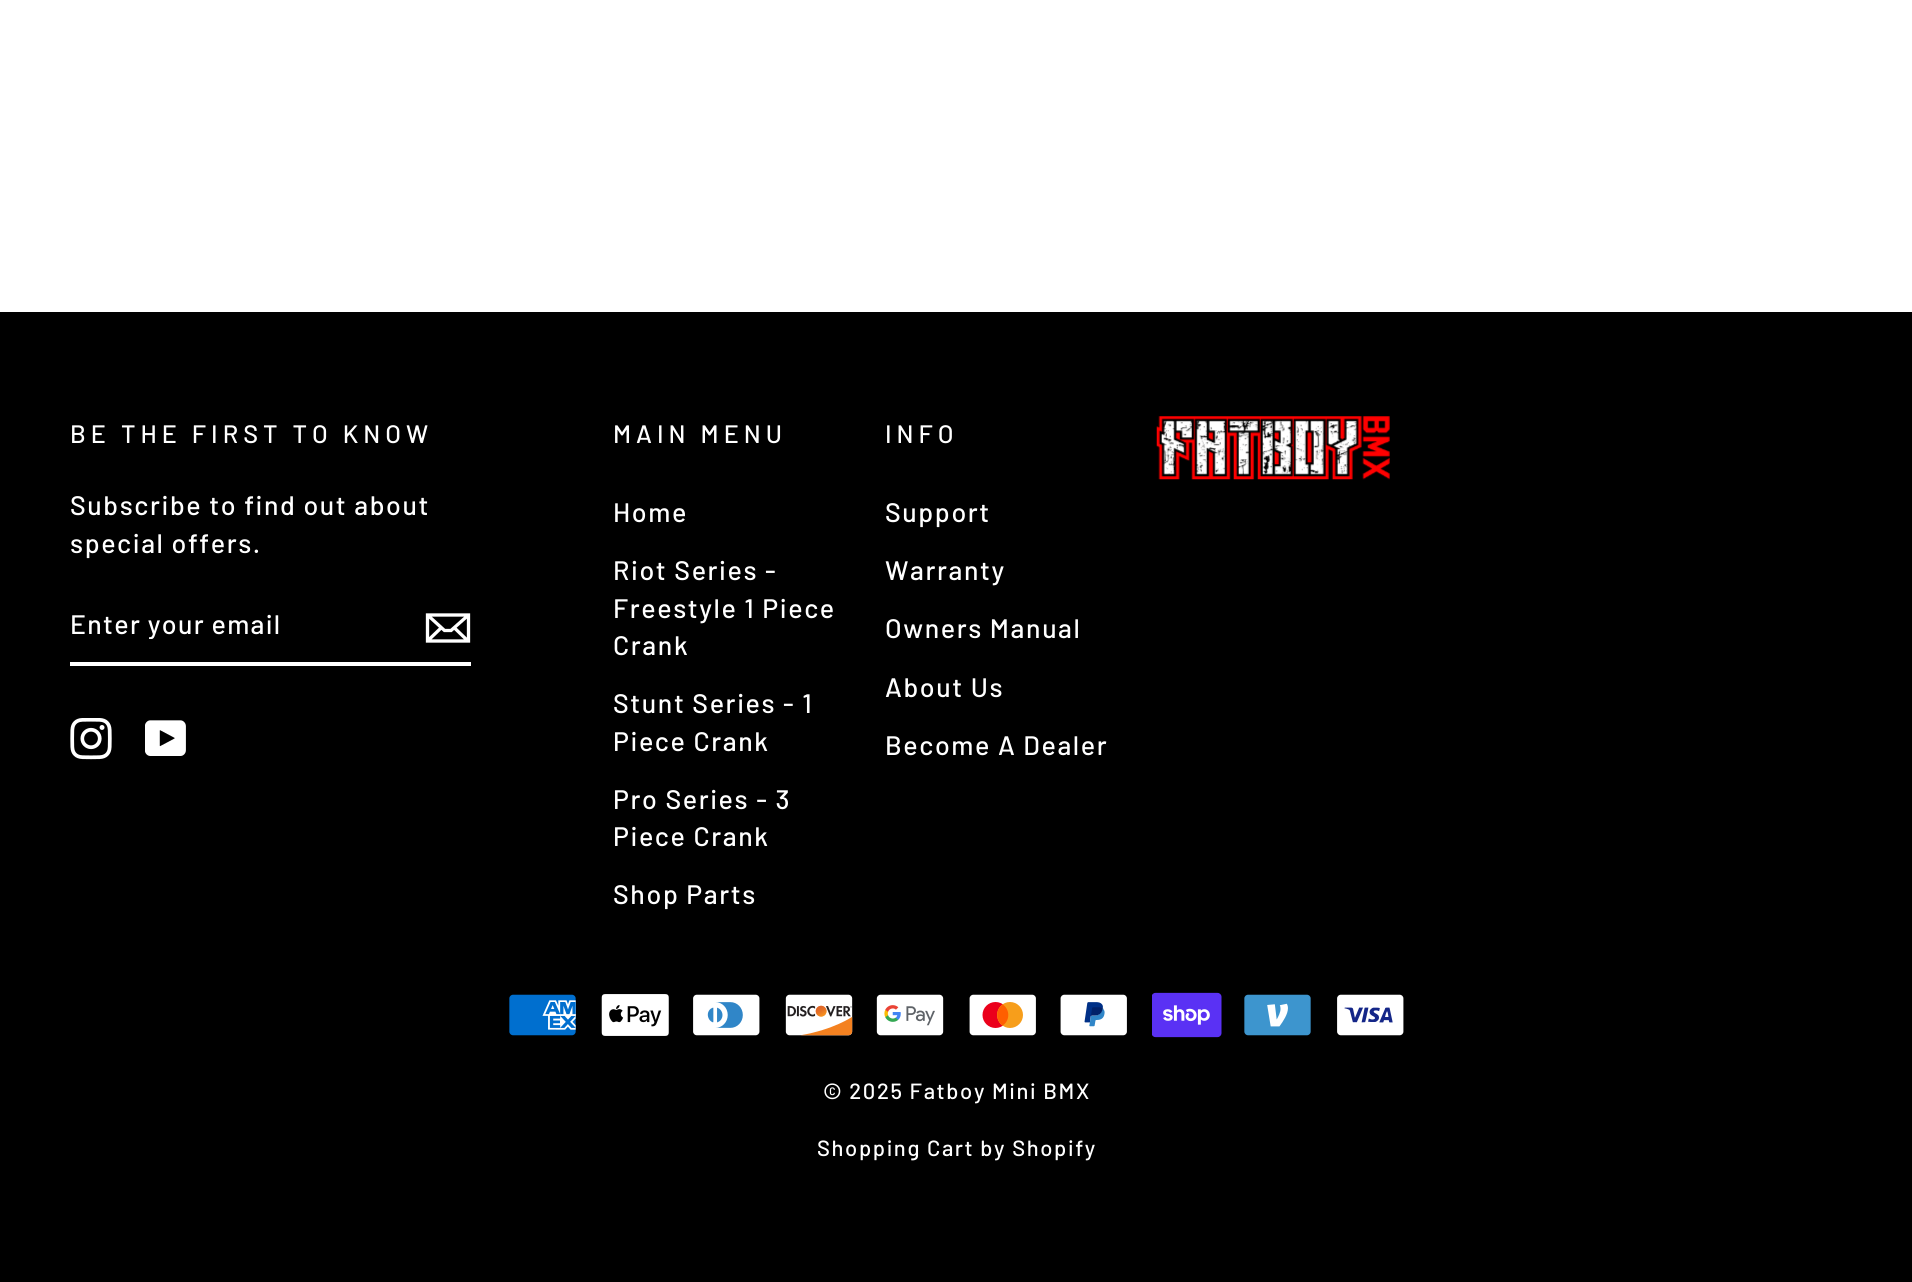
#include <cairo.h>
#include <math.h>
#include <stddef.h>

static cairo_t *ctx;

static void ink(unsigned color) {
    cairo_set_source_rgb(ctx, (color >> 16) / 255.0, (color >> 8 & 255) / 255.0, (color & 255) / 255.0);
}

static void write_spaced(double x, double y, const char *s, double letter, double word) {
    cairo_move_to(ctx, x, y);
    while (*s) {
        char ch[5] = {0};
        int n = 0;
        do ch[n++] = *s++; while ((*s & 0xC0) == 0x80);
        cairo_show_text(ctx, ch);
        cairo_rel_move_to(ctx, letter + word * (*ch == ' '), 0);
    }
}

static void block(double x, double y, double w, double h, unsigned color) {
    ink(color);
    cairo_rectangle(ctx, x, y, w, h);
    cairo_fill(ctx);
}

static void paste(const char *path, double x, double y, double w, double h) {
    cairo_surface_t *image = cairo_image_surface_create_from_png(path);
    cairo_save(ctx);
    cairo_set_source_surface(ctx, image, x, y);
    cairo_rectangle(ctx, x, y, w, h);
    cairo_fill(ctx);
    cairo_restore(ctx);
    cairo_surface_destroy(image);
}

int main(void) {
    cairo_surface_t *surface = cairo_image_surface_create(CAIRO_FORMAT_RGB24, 1912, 1282);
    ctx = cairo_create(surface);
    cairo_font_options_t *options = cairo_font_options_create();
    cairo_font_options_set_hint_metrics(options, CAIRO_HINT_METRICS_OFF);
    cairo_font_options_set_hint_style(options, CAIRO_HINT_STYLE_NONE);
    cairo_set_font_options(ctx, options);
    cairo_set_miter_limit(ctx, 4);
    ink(0xffffff);
    cairo_paint(ctx);
    block(0, 312, 1912, 970, 0x000000);
    cairo_select_font_face(ctx, "Barlow Medium", CAIRO_FONT_SLANT_NORMAL, CAIRO_FONT_WEIGHT_NORMAL);
    cairo_set_font_size(ctx, 25.25);
    ink(0xffffff);
    write_spaced(70, 443, "BE THE FIRST TO KNOW", 5, 0);
    cairo_set_font_size(ctx, 26.75);
    write_spaced(70, 515, "Subscribe to find out about", 1.6, 0);
    write_spaced(70, 553, "special offers.", 1.6, 0);
    block(70, 662, 401, 4, 0xffffff);
    cairo_save(ctx);
    cairo_rectangle(ctx, 70, 607, 322, 32);
    cairo_clip(ctx);
    write_spaced(70, 634, "Enter your email", 1.3, 0);
    cairo_restore(ctx);
    cairo_new_path(ctx);
    cairo_move_to(ctx, 468.5, 641);
    cairo_line_to(ctx, 427.5, 641);
    cairo_line_to(ctx, 427.5, 615);
    cairo_line_to(ctx, 468.5, 615);
    cairo_close_path(ctx);
    cairo_move_to(ctx, 427.5, 615);
    cairo_line_to(ctx, 444.5, 630.5);
    cairo_line_to(ctx, 451, 630.5);
    cairo_line_to(ctx, 468.5, 615);
    cairo_move_to(ctx, 441.5, 627.5);
    cairo_line_to(ctx, 428, 640.5);
    cairo_move_to(ctx, 468, 641);
    cairo_line_to(ctx, 454, 627.5);
    cairo_set_line_width(ctx, 3.3);
    cairo_stroke(ctx);
    paste("pic1.png", 70, 718, 42, 42);
    paste("pic2.png", 145, 720, 41, 36);
    cairo_set_font_size(ctx, 25.25);
    write_spaced(613, 443, "MAIN MENU", 5, 0);
    cairo_set_font_size(ctx, 26.75);
    write_spaced(613, 522, "Home", 1.6, 0);
    write_spaced(613, 580, "Riot Series -", 1.6, 0);
    write_spaced(613, 618, "Freestyle 1 Piece", 1.6, 0);
    write_spaced(613, 655, "Crank", 1.6, 0);
    write_spaced(613, 713, "Stunt Series - 1", 1.6, 0);
    write_spaced(613, 751, "Piece Crank", 1.6, 0);
    write_spaced(613, 809, "Pro Series - 3", 1.6, 0);
    write_spaced(613, 846, "Piece Crank", 1.6, 0);
    write_spaced(613, 904, "Shop Parts", 1.6, 0);
    cairo_set_font_size(ctx, 25.25);
    write_spaced(885, 443, "INFO", 5, 0);
    cairo_set_font_size(ctx, 26.75);
    write_spaced(885, 522, "Support", 1.6, 0);
    write_spaced(885, 580, "Warranty", 1.6, 0);
    write_spaced(885, 638, "Owners Manual", 1.6, 0);
    write_spaced(885, 697, "About Us", 1.6, 0);
    write_spaced(885, 755, "Become A Dealer", 1.6, 0);
    paste("pic3.png", 1156, 416, 234, 64);
    paste("pic4.png", 509, 994, 67, 42);
    paste("pic5.png", 601, 994, 68, 42);
    paste("pic6.png", 693, 994, 67, 42);
    paste("pic7.png", 785, 994, 68, 42);
    paste("pic8.png", 876, 994, 68, 42);
    paste("pic9.png", 969, 994, 67, 42);
    paste("pic10.png", 1060, 994, 67, 42);
    paste("pic11.png", 1152, 992, 70, 46);
    paste("pic12.png", 1244, 994, 67, 42);
    paste("pic13.png", 1337, 994, 67, 42);
    cairo_set_font_size(ctx, 22);
    write_spaced(823, 1099, "© 2025 Fatboy Mini BMX", 1.6, 0);
    write_spaced(817, 1156, "Shopping Cart by Shopify", 1.6, 0);
    cairo_surface_write_to_png(surface, "screenshot.png");
    cairo_font_options_destroy(options);
    cairo_destroy(ctx);
    cairo_surface_destroy(surface);
    return 0;
}
